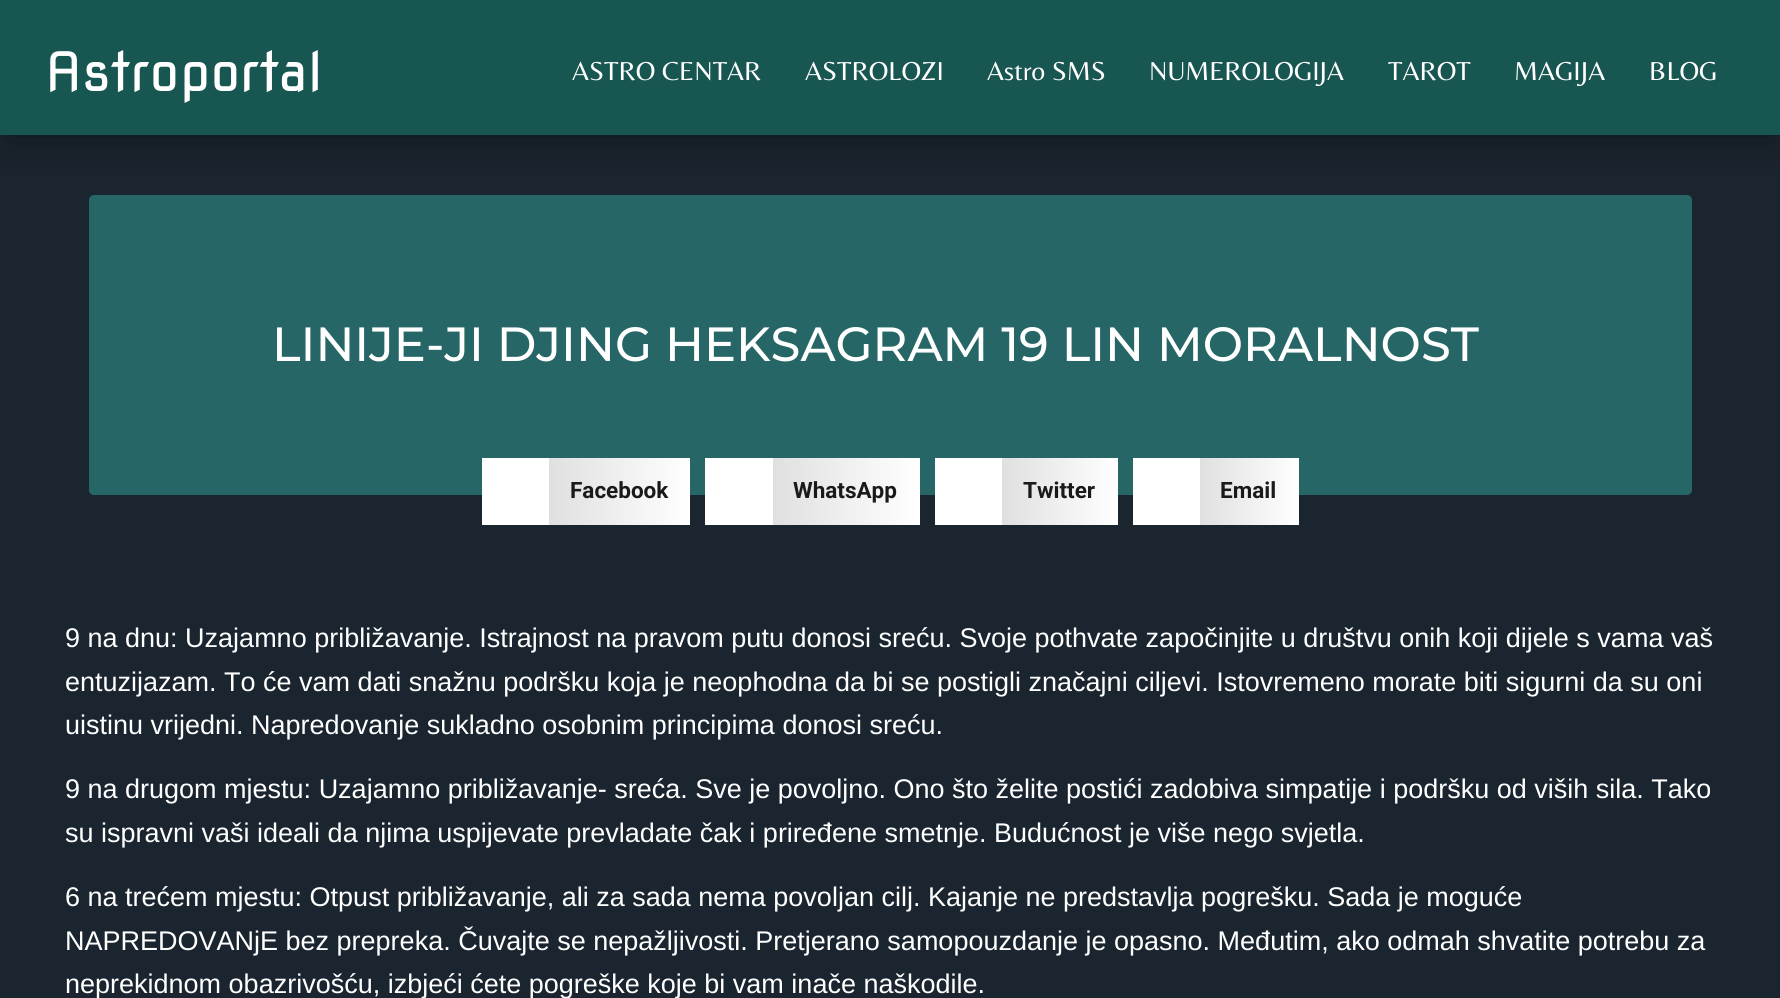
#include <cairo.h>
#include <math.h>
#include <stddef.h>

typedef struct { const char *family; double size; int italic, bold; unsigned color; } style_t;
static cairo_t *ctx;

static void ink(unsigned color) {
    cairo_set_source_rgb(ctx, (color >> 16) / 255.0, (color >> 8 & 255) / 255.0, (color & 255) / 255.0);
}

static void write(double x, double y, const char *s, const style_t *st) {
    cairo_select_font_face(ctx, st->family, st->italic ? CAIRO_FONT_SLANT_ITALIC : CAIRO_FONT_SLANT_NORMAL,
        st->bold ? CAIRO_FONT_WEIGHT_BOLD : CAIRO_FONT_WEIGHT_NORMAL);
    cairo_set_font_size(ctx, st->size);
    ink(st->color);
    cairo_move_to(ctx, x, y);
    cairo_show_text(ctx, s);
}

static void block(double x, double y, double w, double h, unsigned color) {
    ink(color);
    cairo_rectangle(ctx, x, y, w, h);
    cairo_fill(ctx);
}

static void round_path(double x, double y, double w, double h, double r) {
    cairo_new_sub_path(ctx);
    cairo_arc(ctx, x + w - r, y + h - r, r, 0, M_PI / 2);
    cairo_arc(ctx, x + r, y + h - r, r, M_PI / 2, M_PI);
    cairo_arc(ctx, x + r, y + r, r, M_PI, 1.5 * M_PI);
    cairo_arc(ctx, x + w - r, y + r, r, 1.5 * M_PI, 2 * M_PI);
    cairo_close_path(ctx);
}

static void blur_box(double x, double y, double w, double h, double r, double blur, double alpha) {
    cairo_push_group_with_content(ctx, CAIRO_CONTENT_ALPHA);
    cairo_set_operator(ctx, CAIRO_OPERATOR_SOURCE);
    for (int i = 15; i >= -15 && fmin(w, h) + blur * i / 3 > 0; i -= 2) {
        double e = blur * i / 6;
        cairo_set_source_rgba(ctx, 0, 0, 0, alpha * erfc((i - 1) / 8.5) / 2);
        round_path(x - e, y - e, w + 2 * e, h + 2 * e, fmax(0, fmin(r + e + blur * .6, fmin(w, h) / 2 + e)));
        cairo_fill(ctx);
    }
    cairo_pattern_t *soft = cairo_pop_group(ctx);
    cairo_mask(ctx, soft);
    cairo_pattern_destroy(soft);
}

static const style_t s1 = {"Nova Square", 54, 0, 0, 0xffffff};
static const style_t s2 = {"Belleza", 27, 0, 0, 0xffffff};
static const style_t s3 = {"Montserrat Medium", 48, 0, 0, 0xffffff};
static const style_t s4 = {"Roboto", 22.5, 0, 1, 0x1a1a1a};
static const style_t s5 = {"Liberation Sans", 27, 0, 0, 0xffffff};

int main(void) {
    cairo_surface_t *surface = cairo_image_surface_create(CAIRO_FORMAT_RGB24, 1780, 998);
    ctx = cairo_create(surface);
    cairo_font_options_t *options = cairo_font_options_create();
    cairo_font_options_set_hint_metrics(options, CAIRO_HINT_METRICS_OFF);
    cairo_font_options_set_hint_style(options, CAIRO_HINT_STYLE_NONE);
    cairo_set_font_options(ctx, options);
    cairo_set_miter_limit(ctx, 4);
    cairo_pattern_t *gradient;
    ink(0x1b252f);
    cairo_paint(ctx);
    ink(0x266666);
    round_path(89, 195, 1603, 300, 5);
    cairo_fill(ctx);
    ink(0x000000);
    blur_box(8, 15, 1765, 120, 0, 22.5, 0.5);
    block(0, 0, 1780, 135, 0x185651);
    write(45, 91, "Astroportal", &s1);
    write(572, 80, "ASTRO CENTAR", &s2);
    write(805, 80, "ASTROLOZI", &s2);
    write(987, 80, "Astro SMS", &s2);
    write(1149, 80, "NUMEROLOGIJA", &s2);
    write(1388, 80, "TAROT", &s2);
    write(1514, 80, "MAGIJA", &s2);
    write(1649, 80, "BLOG", &s2);
    write(272, 361, "LINIJE-JI DJING HEKSAGRAM 19 LIN MORALNOST", &s3);
    block(482, 458, 67, 67, 0xffffff);
    gradient = cairo_pattern_create_linear(549, 491, 690, 491);
    cairo_pattern_add_color_stop_rgba(gradient, 0, 0.878, 0.878, 0.878, 1);
    cairo_pattern_add_color_stop_rgba(gradient, 1, 1, 1, 1, 1);
    cairo_set_source(ctx, gradient);
    cairo_pattern_destroy(gradient);
    cairo_rectangle(ctx, 549, 458, 141, 67);
    cairo_fill(ctx);
    write(570, 498, "Facebook", &s4);
    block(705, 458, 68, 67, 0xffffff);
    gradient = cairo_pattern_create_linear(773, 491, 920, 491);
    cairo_pattern_add_color_stop_rgba(gradient, 0, 0.878, 0.878, 0.878, 1);
    cairo_pattern_add_color_stop_rgba(gradient, 1, 1, 1, 1, 1);
    cairo_set_source(ctx, gradient);
    cairo_pattern_destroy(gradient);
    cairo_rectangle(ctx, 773, 458, 147, 67);
    cairo_fill(ctx);
    write(793, 498, "WhatsApp", &s4);
    block(935, 458, 67, 67, 0xffffff);
    gradient = cairo_pattern_create_linear(1002, 491, 1118, 491);
    cairo_pattern_add_color_stop_rgba(gradient, 0, 0.878, 0.878, 0.878, 1);
    cairo_pattern_add_color_stop_rgba(gradient, 1, 1, 1, 1, 1);
    cairo_set_source(ctx, gradient);
    cairo_pattern_destroy(gradient);
    cairo_rectangle(ctx, 1002, 458, 116, 67);
    cairo_fill(ctx);
    write(1023, 498, "Twitter", &s4);
    block(1133, 458, 67, 67, 0xffffff);
    gradient = cairo_pattern_create_linear(1200, 491, 1299, 491);
    cairo_pattern_add_color_stop_rgba(gradient, 0, 0.878, 0.878, 0.878, 1);
    cairo_pattern_add_color_stop_rgba(gradient, 1, 1, 1, 1, 1);
    cairo_set_source(ctx, gradient);
    cairo_pattern_destroy(gradient);
    cairo_rectangle(ctx, 1200, 458, 99, 67);
    cairo_fill(ctx);
    write(1220, 498, "Email", &s4);
    write(65, 647, "9 na dnu: Uzajamno približavanje. Istrajnost na pravom putu donosi sreću. Svoje pothvate započinjite u društvu onih koji dijele s vama vaš", &s5);
    write(65, 691, "entuzijazam. To će vam dati snažnu podršku koja je neophodna da bi se postigli značajni ciljevi. Istovremeno morate biti sigurni da su oni", &s5);
    write(65, 734, "uistinu vrijedni. Napredovanje sukladno osobnim principima donosi sreću.", &s5);
    write(65, 798, "9 na drugom mjestu: Uzajamno približavanje- sreća. Sve je povoljno. Ono što želite postići zadobiva simpatije i podršku od viših sila. Tako", &s5);
    write(65, 842, "su ispravni vaši ideali da njima uspijevate prevladate čak i priređene smetnje. Budućnost je više nego svjetla.", &s5);
    write(65, 906, "6 na trećem mjestu: Otpust približavanje, ali za sada nema povoljan cilj. Kajanje ne predstavlja pogrešku. Sada je moguće", &s5);
    write(65, 950, "NAPREDOVANjE bez prepreka. Čuvajte se nepažljivosti. Pretjerano samopouzdanje je opasno. Međutim, ako odmah shvatite potrebu za", &s5);
    write(65, 993, "neprekidnom obazrivošću, izbjeći ćete pogreške koje bi vam inače naškodile.", &s5);
    cairo_surface_write_to_png(surface, "screenshot.png");
    cairo_font_options_destroy(options);
    cairo_destroy(ctx);
    cairo_surface_destroy(surface);
    return 0;
}
